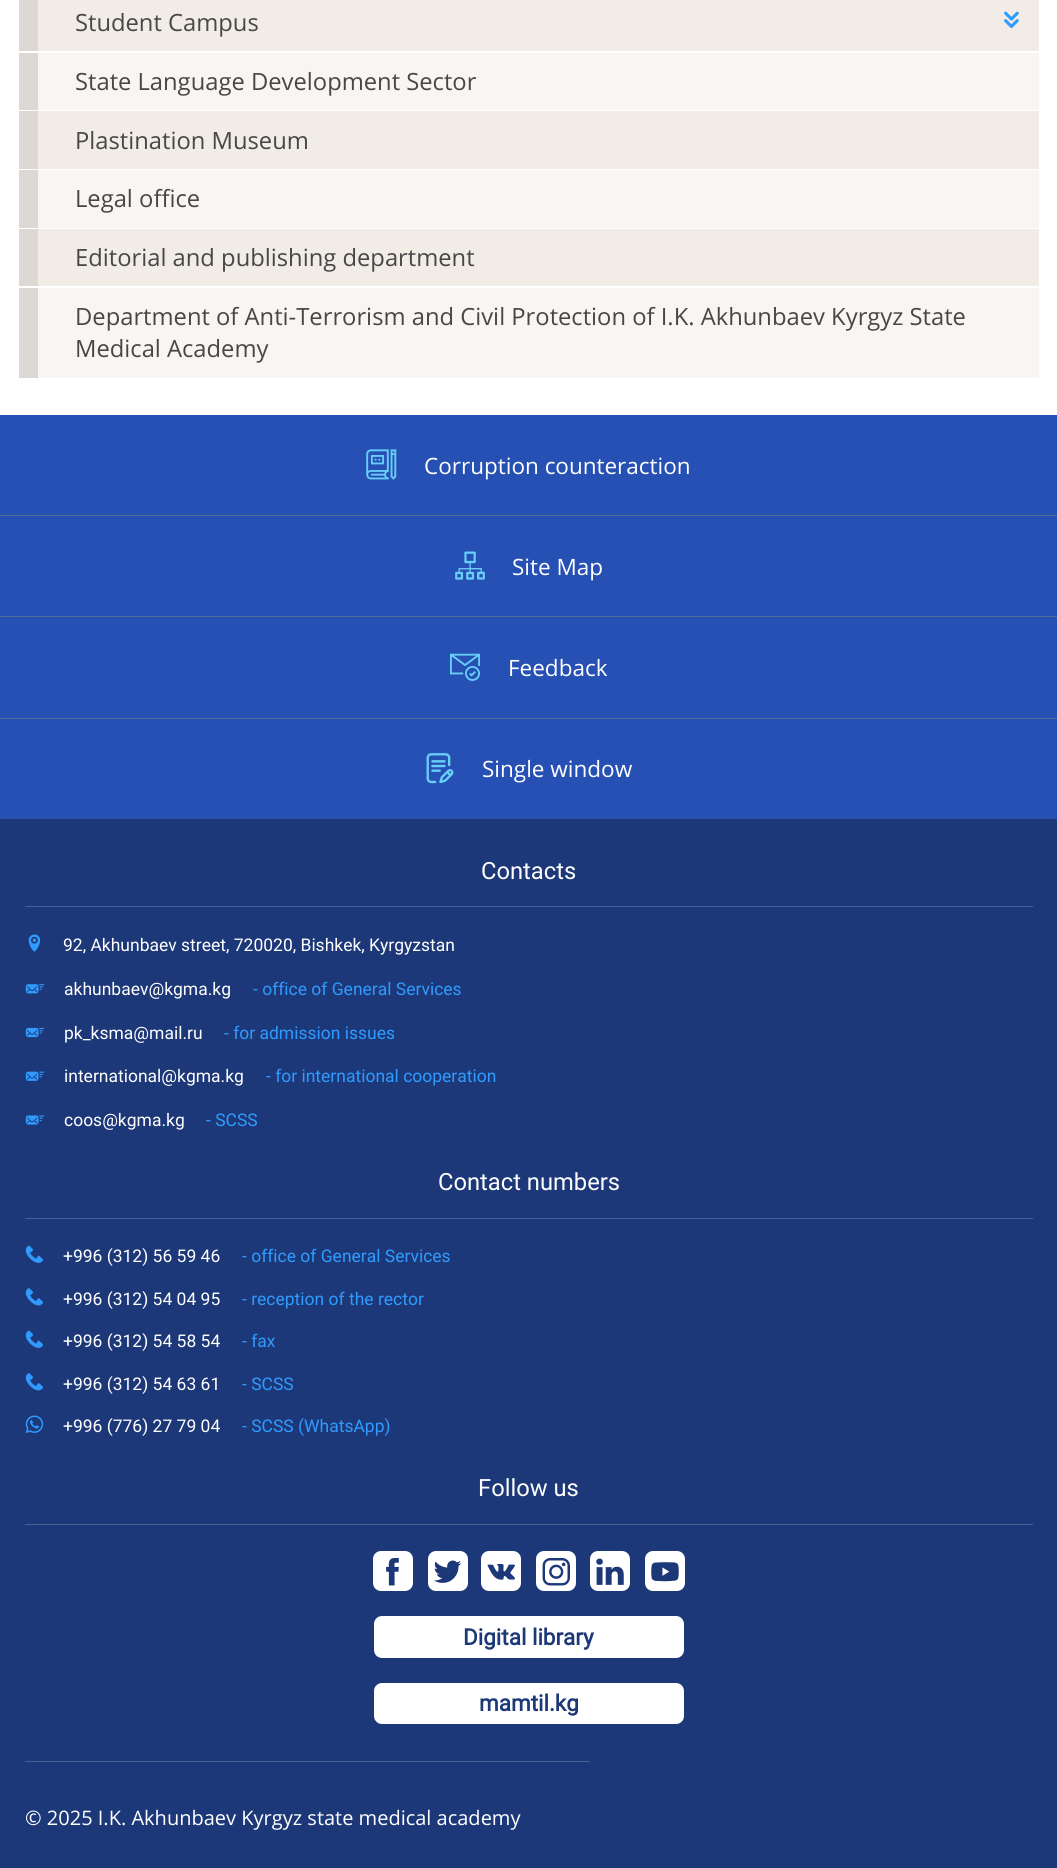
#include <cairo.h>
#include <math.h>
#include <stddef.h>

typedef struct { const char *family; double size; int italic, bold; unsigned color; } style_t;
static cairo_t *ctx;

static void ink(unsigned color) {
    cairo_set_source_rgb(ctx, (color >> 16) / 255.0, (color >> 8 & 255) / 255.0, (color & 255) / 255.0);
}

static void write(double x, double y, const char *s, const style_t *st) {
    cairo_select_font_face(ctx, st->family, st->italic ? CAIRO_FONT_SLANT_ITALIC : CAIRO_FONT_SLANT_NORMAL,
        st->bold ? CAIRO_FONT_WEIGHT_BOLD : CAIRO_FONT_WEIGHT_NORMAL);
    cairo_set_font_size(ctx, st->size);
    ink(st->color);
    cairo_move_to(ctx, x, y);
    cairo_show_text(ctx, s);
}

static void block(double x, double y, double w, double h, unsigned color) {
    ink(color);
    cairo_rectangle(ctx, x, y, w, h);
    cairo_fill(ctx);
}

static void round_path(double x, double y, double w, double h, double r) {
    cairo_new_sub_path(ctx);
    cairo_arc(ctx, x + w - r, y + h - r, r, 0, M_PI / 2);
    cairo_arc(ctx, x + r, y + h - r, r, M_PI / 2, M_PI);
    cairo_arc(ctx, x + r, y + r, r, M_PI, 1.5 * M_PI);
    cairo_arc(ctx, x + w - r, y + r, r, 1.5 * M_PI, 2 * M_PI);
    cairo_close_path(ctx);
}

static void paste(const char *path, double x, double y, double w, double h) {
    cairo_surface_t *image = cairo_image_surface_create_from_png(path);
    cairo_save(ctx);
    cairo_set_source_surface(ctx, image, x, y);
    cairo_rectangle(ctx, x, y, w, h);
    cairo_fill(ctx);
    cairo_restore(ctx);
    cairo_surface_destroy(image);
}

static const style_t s1 = {"Open Sans", 23.75, 0, 0, 0x474747};
static const style_t s2 = {"Open Sans", 22.5, 0, 0, 0xffffff};
static const style_t s3 = {"Roboto", 23.75, 0, 0, 0xffffff};
static const style_t s4 = {"Roboto", 17.5, 0, 0, 0xffffff};
static const style_t s5 = {"Roboto", 17.5, 0, 0, 0x2f9bfe};
static const style_t s6 = {"Roboto", 22.5, 0, 1, 0x1d3878};
static const style_t s7 = {"Open Sans", 20, 0, 0, 0xffffff};

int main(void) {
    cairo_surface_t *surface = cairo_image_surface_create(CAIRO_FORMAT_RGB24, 1057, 1868);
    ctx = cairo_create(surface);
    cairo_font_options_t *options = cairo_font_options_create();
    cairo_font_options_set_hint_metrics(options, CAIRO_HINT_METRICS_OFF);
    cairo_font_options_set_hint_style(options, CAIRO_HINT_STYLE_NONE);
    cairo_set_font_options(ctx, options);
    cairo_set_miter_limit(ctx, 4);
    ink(0xffffff);
    cairo_paint(ctx);
    block(38, 0, 1001, 51, 0xf1ece6);
    block(19, 0, 19, 51, 0xdcd9d5);
    write(75, 31, "Student Campus", &s1);
    paste("pic1.png", 1004, 11, 15, 18);
    block(38, 53, 1001, 57, 0xf8f5f2);
    block(19, 53, 19, 57, 0xdcd9d5);
    write(75, 90, "State Language Development Sector", &s1);
    block(38, 111, 1001, 58, 0xf1ece6);
    block(19, 111, 19, 58, 0xdcd9d5);
    write(75, 149, "Plastination Museum", &s1);
    block(38, 170, 1001, 58, 0xf8f5f2);
    block(19, 170, 19, 58, 0xdcd9d5);
    write(75, 207, "Legal office", &s1);
    block(38, 229, 1001, 57, 0xf1ece6);
    block(19, 229, 19, 57, 0xdcd9d5);
    write(75, 266, "Editorial and publishing department", &s1);
    block(38, 288, 1001, 90, 0xf8f5f2);
    block(19, 288, 19, 90, 0xdcd9d5);
    write(75, 325, "Department of Anti-Terrorism and Civil Protection of I.K. Akhunbaev Kyrgyz State", &s1);
    write(75, 357, "Medical Academy", &s1);
    block(0, 415, 1057, 404, 0x2650b3);
    paste("pic2.png", 366, 449, 31, 31);
    write(424, 474, "Corruption counteraction", &s2);
    block(0, 515, 1057, 1, 0x556998);
    paste("pic3.png", 455, 551, 30, 29);
    write(512, 575, "Site Map", &s2);
    block(0, 616, 1057, 1, 0x556998);
    paste("pic4.png", 450, 653, 30, 28);
    write(508, 676, "Feedback", &s2);
    block(0, 718, 1057, 1, 0x556998);
    paste("pic5.png", 426, 753, 28, 31);
    write(482, 777, "Single window", &s2);
    block(0, 819, 1057, 1049, 0x1d3878);
    block(25, 906, 1008, 1, 0x4a6093);
    write(481, 879, "Contacts", &s3);
    paste("pic6.png", 28, 934, 13, 18);
    write(63, 951, "92, Akhunbaev street, 720020, Bishkek, Kyrgyzstan", &s4);
    paste("pic7.png", 25, 984, 20, 10);
    write(64, 995, "akhunbaev@kgma.kg", &s4);
    write(253, 995, "- office of General Services", &s5);
    paste("pic8.png", 25, 1027, 20, 11);
    write(64, 1039, "pk_ksma@mail.ru", &s4);
    write(224, 1039, "- for admission issues", &s5);
    paste("pic9.png", 25, 1071, 20, 10);
    write(64, 1082, "international@kgma.kg", &s4);
    write(266, 1082, "- for international cooperation", &s5);
    paste("pic10.png", 25, 1115, 20, 10);
    write(64, 1126, "coos@kgma.kg", &s4);
    write(206, 1126, "- SCSS", &s5);
    block(25, 1218, 1008, 1, 0x4a6093);
    write(438, 1190, "Contact numbers", &s3);
    paste("pic11.png", 25, 1245, 18, 18);
    write(63, 1262, "+996 (312) 56 59 46", &s4);
    write(242, 1262, "- office of General Services", &s5);
    paste("pic12.png", 25, 1288, 18, 18);
    write(63, 1305, "+996 (312) 54 04 95", &s4);
    write(242, 1305, "- reception of the rector", &s5);
    paste("pic11.png", 25, 1330, 18, 18);
    write(63, 1347, "+996 (312) 54 58 54", &s4);
    write(242, 1347, "- fax", &s5);
    paste("pic12.png", 25, 1373, 18, 18);
    write(63, 1390, "+996 (312) 54 63 61", &s4);
    write(242, 1390, "- SCSS", &s5);
    paste("pic13.png", 25, 1415, 19, 18);
    write(63, 1432, "+996 (776) 27 79 04", &s4);
    write(242, 1432, "- SCSS (WhatsApp)", &s5);
    block(25, 1524, 1008, 1, 0x4a6093);
    write(478, 1496, "Follow us", &s3);
    round_path(373, 1551, 40, 40, 8);
    cairo_fill(ctx);
    paste("pic14.png", 386, 1558, 13, 28);
    round_path(428, 1551, 40, 40, 8);
    cairo_fill(ctx);
    paste("pic15.png", 433, 1560, 29, 23);
    round_path(481, 1551, 40, 40, 8);
    cairo_fill(ctx);
    paste("pic16.png", 487, 1563, 28, 17);
    round_path(536, 1551, 40, 40, 8);
    cairo_fill(ctx);
    paste("pic17.png", 542, 1558, 28, 28);
    round_path(590, 1551, 40, 40, 8);
    cairo_fill(ctx);
    paste("pic18.png", 596, 1558, 28, 27);
    round_path(645, 1551, 40, 40, 8);
    cairo_fill(ctx);
    paste("pic19.png", 651, 1562, 28, 20);
    round_path(374, 1616, 310, 42, 8);
    cairo_fill(ctx);
    write(463, 1645, "Digital library", &s6);
    ink(0xffffff);
    round_path(374, 1683, 310, 41, 8);
    cairo_fill(ctx);
    write(479, 1711, "mamtil.kg", &s6);
    block(25, 1761, 565, 1, 0x4a6093);
    write(25, 1825, "© 2025 I.K. Akhunbaev Kyrgyz state medical academy", &s7);
    cairo_surface_write_to_png(surface, "screenshot.png");
    cairo_font_options_destroy(options);
    cairo_destroy(ctx);
    cairo_surface_destroy(surface);
    return 0;
}
